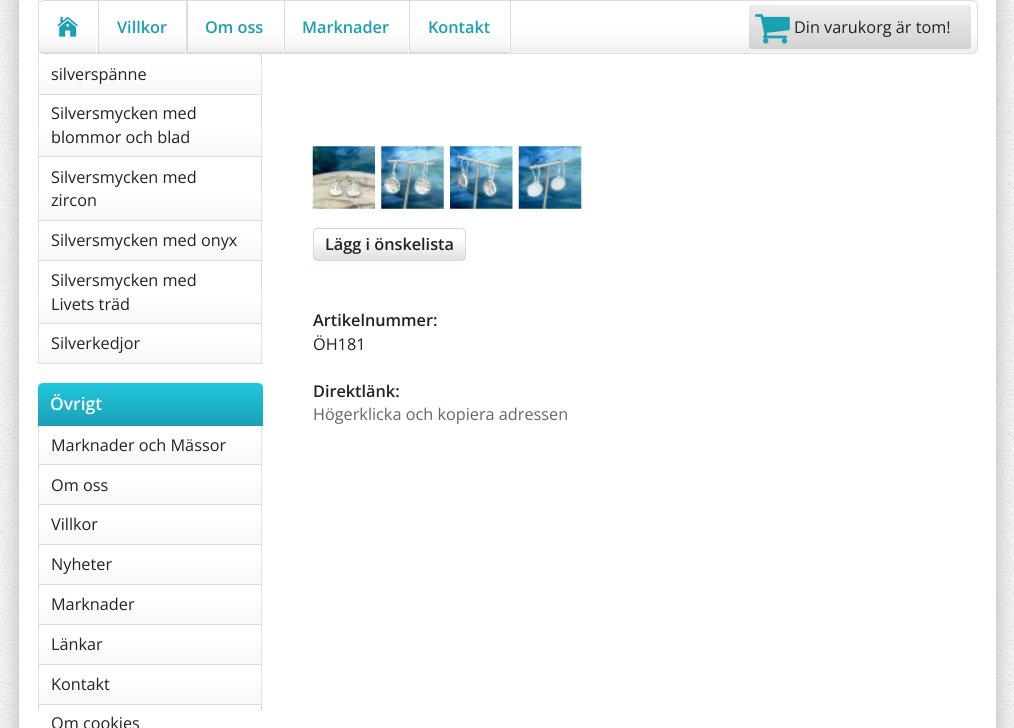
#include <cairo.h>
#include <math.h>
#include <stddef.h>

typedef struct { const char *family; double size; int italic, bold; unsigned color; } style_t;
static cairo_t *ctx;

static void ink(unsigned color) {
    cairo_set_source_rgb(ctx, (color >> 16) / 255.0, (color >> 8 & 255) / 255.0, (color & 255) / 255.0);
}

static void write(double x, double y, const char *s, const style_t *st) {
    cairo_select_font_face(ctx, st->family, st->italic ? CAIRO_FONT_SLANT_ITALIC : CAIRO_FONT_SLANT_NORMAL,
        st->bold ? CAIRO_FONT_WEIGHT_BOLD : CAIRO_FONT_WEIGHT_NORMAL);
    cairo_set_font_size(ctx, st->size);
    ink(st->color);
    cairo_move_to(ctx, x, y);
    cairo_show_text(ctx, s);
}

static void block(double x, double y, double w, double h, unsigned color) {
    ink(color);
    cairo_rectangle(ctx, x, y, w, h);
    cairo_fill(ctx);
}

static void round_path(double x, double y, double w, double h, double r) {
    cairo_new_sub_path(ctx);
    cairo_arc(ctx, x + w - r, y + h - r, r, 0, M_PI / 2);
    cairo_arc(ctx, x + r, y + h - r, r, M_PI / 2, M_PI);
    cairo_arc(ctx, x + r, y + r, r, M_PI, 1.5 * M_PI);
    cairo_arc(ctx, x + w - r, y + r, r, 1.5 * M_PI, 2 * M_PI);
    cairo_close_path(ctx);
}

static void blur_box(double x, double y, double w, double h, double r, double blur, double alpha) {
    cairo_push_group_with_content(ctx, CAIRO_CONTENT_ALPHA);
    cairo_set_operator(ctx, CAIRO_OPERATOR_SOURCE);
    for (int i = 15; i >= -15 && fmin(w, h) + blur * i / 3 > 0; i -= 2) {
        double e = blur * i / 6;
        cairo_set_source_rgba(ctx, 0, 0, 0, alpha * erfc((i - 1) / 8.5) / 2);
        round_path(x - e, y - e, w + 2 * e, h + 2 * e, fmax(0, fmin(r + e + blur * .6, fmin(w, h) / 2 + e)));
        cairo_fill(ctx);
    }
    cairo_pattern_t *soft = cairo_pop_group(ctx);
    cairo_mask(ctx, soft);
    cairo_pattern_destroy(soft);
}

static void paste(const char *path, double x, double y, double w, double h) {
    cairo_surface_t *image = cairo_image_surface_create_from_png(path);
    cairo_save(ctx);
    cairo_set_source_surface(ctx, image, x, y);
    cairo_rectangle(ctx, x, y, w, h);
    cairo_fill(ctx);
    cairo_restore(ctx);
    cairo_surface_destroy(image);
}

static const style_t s1 = {"Open Sans SemiBold", 16.25, 0, 0, 0x1aa0b3};
static const style_t s2 = {"Open Sans", 16.25, 0, 0, 0x222222};
static const style_t s3 = {"Open Sans SemiBold", 17.5, 0, 0, 0xffffff};
static const style_t s4 = {"Open Sans SemiBold", 16.25, 0, 0, 0x222222};
static const style_t s5 = {"Open Sans", 16.25, 0, 0, 0x666666};

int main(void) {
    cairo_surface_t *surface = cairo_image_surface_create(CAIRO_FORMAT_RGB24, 1014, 728);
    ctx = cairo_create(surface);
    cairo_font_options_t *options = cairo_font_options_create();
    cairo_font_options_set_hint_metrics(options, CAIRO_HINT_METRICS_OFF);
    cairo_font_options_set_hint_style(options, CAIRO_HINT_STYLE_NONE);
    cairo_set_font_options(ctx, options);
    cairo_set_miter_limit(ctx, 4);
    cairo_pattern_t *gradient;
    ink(0xffffff);
    cairo_paint(ctx);
    paste("pic1.png", 0, 0, 1014, 728);
    ink(0xb5b5b5);
    blur_box(19, -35, 977, 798, 6, 9.5, 1);
    block(19, 0, 977, 728, 0xffffff);
    block(38, 0, 1, 364, 0xdcdcdc);
    paste("pic5.png", 38, 0, 6, 6);
    ink(0xffffff);
    round_path(38, 0, 940, 54, 6);
    cairo_fill(ctx);
    paste("pic2.png", 38, 4, 940, 49);
    round_path(38.5, 0.5, 939, 53, 5.5);
    ink(0xdcdcdc);
    cairo_set_line_width(ctx, 1);
    cairo_stroke(ctx);
    cairo_new_path(ctx);
    cairo_move_to(ctx, 40, 1);
    cairo_line_to(ctx, 98, 1);
    cairo_line_to(ctx, 98, 52);
    cairo_line_to(ctx, 40, 52);
    cairo_line_to(ctx, 40, 53);
    cairo_line_to(ctx, 99, 53);
    cairo_line_to(ctx, 99, 1);
    cairo_close_path(ctx);
    cairo_fill(ctx);
    block(96, 35, 1, 18, 0xffffff);
    paste("pic3.png", 57, 16, 21, 21);
    ink(0xdcdcdc);
    cairo_new_path(ctx);
    cairo_move_to(ctx, 99, 1);
    cairo_line_to(ctx, 186, 1);
    cairo_line_to(ctx, 186, 52);
    cairo_line_to(ctx, 99, 52);
    cairo_line_to(ctx, 99, 53);
    cairo_line_to(ctx, 188, 53);
    cairo_line_to(ctx, 188, 1);
    cairo_close_path(ctx);
    cairo_fill(ctx);
    block(185, 35, 1, 18, 0xffffff);
    write(117, 33, "Villkor", &s1);
    ink(0xdcdcdc);
    cairo_new_path(ctx);
    cairo_move_to(ctx, 188, 1);
    cairo_line_to(ctx, 284, 1);
    cairo_line_to(ctx, 284, 52);
    cairo_line_to(ctx, 188, 52);
    cairo_line_to(ctx, 188, 53);
    cairo_line_to(ctx, 285, 53);
    cairo_line_to(ctx, 285, 1);
    cairo_close_path(ctx);
    cairo_fill(ctx);
    block(283, 35, 1, 18, 0xffffff);
    write(205, 33, "Om oss", &s1);
    ink(0xdcdcdc);
    cairo_new_path(ctx);
    cairo_move_to(ctx, 285, 1);
    cairo_line_to(ctx, 409, 1);
    cairo_line_to(ctx, 409, 52);
    cairo_line_to(ctx, 285, 52);
    cairo_line_to(ctx, 285, 53);
    cairo_line_to(ctx, 410, 53);
    cairo_line_to(ctx, 410, 1);
    cairo_close_path(ctx);
    cairo_fill(ctx);
    block(408, 35, 1, 18, 0xffffff);
    write(302, 33, "Marknader", &s1);
    ink(0xdcdcdc);
    cairo_new_path(ctx);
    cairo_move_to(ctx, 410, 1);
    cairo_line_to(ctx, 510, 1);
    cairo_line_to(ctx, 510, 52);
    cairo_line_to(ctx, 410, 52);
    cairo_line_to(ctx, 410, 53);
    cairo_line_to(ctx, 511, 53);
    cairo_line_to(ctx, 511, 1);
    cairo_close_path(ctx);
    cairo_fill(ctx);
    block(509, 35, 1, 18, 0xffffff);
    write(428, 33, "Kontakt", &s1);
    gradient = cairo_pattern_create_linear(860, 5, 860, 49);
    cairo_pattern_add_color_stop_rgba(gradient, 0, 0.929, 0.929, 0.929, 1);
    cairo_pattern_add_color_stop_rgba(gradient, 1, 0.827, 0.827, 0.827, 1);
    cairo_set_source(ctx, gradient);
    cairo_pattern_destroy(gradient);
    round_path(749, 5, 222, 44, 2.5);
    cairo_fill(ctx);
    paste("pic4.png", 755, 14, 35, 30);
    write(794, 33, "Din varukorg är tom!", &s2);
    block(261, 54, 1, 310, 0xdcdcdc);
    block(39, 363, 224, 1, 0xdcdcdc);
    paste("pic6.png", 38, 62, 224, 32);
    block(39, 94, 222, 1, 0xdcdcdc);
    write(51, 80, "silverspänne", &s2);
    paste("pic7.png", 38, 125, 224, 31);
    block(39, 156, 222, 1, 0xdcdcdc);
    write(51, 119, "Silversmycken med", &s2);
    write(51, 143, "blommor och blad", &s2);
    paste("pic8.png", 38, 189, 224, 31);
    block(39, 220, 222, 1, 0xdcdcdc);
    write(51, 183, "Silversmycken med", &s2);
    write(51, 206, "zircon", &s2);
    paste("pic8.png", 38, 229, 224, 31);
    block(39, 260, 222, 1, 0xdcdcdc);
    write(51, 246, "Silversmycken med onyx", &s2);
    paste("pic9.png", 38, 291, 224, 32);
    block(39, 323, 222, 1, 0xdcdcdc);
    write(51, 286, "Silversmycken med", &s2);
    write(51, 310, "Livets träd", &s2);
    paste("pic9.png", 38, 331, 224, 32);
    write(51, 349, "Silverkedjor", &s2);
    gradient = cairo_pattern_create_linear(150, 383, 150, 426);
    cairo_pattern_add_color_stop_rgba(gradient, 0, 0.129, 0.78, 0.875, 1);
    cairo_pattern_add_color_stop_rgba(gradient, 1, 0.102, 0.627, 0.702, 1);
    cairo_set_source(ctx, gradient);
    cairo_pattern_destroy(gradient);
    cairo_new_path(ctx);
    cairo_move_to(ctx, 43, 383);
    cairo_line_to(ctx, 258, 383);
    cairo_curve_to(ctx, 261, 383, 263, 385, 263, 388);
    cairo_line_to(ctx, 263, 426);
    cairo_line_to(ctx, 38, 426);
    cairo_line_to(ctx, 38, 388);
    cairo_curve_to(ctx, 38, 385, 40, 383, 43, 383);
    cairo_close_path(ctx);
    cairo_fill(ctx);
    write(50, 410, "Övrigt", &s3);
    block(261, 426, 1, 285, 0xdcdcdc);
    block(38, 426, 1, 285, 0xdcdcdc);
    paste("pic6.png", 38, 432, 224, 32);
    block(39, 464, 222, 1, 0xdcdcdc);
    write(51, 451, "Marknader och Mässor", &s2);
    paste("pic6.png", 38, 472, 224, 32);
    block(39, 504, 222, 1, 0xdcdcdc);
    write(51, 491, "Om oss", &s2);
    paste("pic6.png", 38, 512, 224, 32);
    block(39, 544, 222, 1, 0xdcdcdc);
    write(51, 530, "Villkor", &s2);
    paste("pic6.png", 38, 552, 224, 32);
    block(39, 584, 222, 1, 0xdcdcdc);
    write(51, 570, "Nyheter", &s2);
    paste("pic6.png", 38, 592, 224, 32);
    block(39, 624, 222, 1, 0xdcdcdc);
    write(51, 610, "Marknader", &s2);
    paste("pic6.png", 38, 632, 224, 32);
    block(39, 664, 222, 1, 0xdcdcdc);
    write(51, 650, "Länkar", &s2);
    paste("pic6.png", 38, 672, 224, 32);
    block(39, 704, 222, 1, 0xdcdcdc);
    write(51, 690, "Kontakt", &s2);
    write(51, 729, "Om cookies", &s2);
    paste("pic10.png", 312, 146, 63, 63);
    paste("pic11.png", 381, 146, 63, 63);
    paste("pic12.png", 450, 146, 63, 63);
    paste("pic13.png", 518, 146, 64, 63);
    paste("pic14.png", 312, 241, 154, 19);
    round_path(313.5, 228.5, 152, 32, 4.5);
    ink(0xd7d7d7);
    cairo_stroke(ctx);
    write(325, 250, "Lägg i önskelista", &s4);
    write(313, 326, "Artikelnummer:", &s4);
    write(313, 350, "ÖH181", &s2);
    write(313, 397, "Direktlänk:", &s4);
    write(313, 420, "Högerklicka och kopiera adressen", &s5);
    cairo_surface_write_to_png(surface, "screenshot.png");
    cairo_font_options_destroy(options);
    cairo_destroy(ctx);
    cairo_surface_destroy(surface);
    return 0;
}
